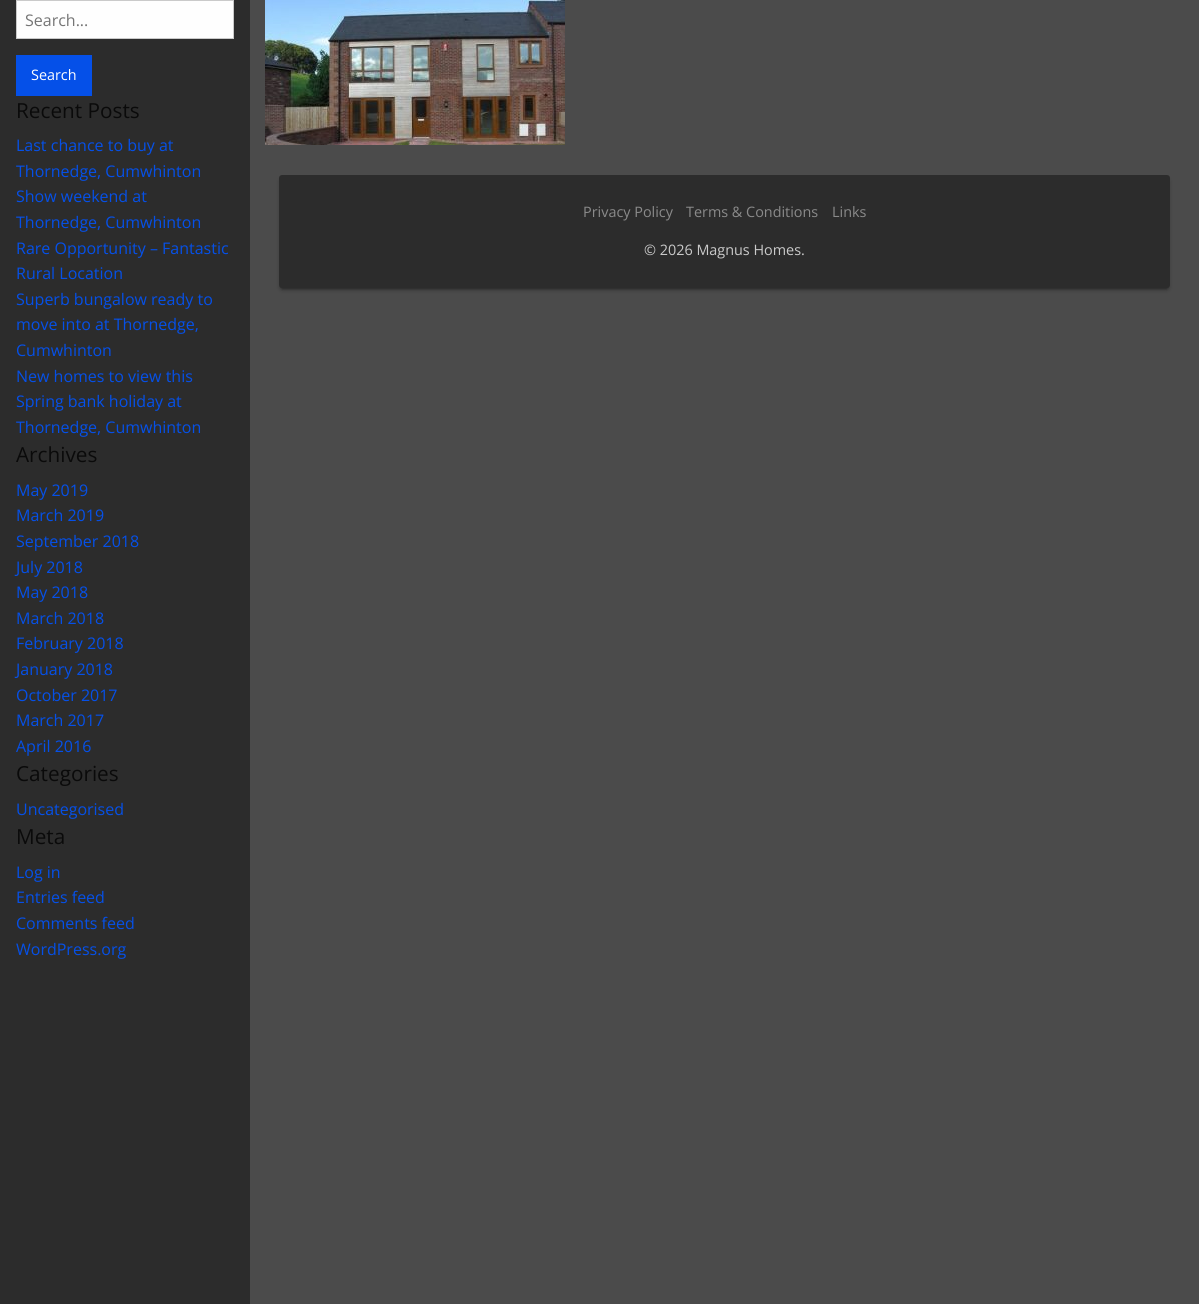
#include <cairo.h>
#include <math.h>
#include <stddef.h>

typedef struct { const char *family; double size; int italic, bold; unsigned color; } style_t;
static cairo_t *ctx;

static void ink(unsigned color) {
    cairo_set_source_rgb(ctx, (color >> 16) / 255.0, (color >> 8 & 255) / 255.0, (color & 255) / 255.0);
}

static void write(double x, double y, const char *s, const style_t *st) {
    cairo_select_font_face(ctx, st->family, st->italic ? CAIRO_FONT_SLANT_ITALIC : CAIRO_FONT_SLANT_NORMAL,
        st->bold ? CAIRO_FONT_WEIGHT_BOLD : CAIRO_FONT_WEIGHT_NORMAL);
    cairo_set_font_size(ctx, st->size);
    ink(st->color);
    cairo_move_to(ctx, x, y);
    cairo_show_text(ctx, s);
}

static void block(double x, double y, double w, double h, unsigned color) {
    ink(color);
    cairo_rectangle(ctx, x, y, w, h);
    cairo_fill(ctx);
}

static void round_path(double x, double y, double w, double h, double r) {
    cairo_new_sub_path(ctx);
    cairo_arc(ctx, x + w - r, y + h - r, r, 0, M_PI / 2);
    cairo_arc(ctx, x + r, y + h - r, r, M_PI / 2, M_PI);
    cairo_arc(ctx, x + r, y + r, r, M_PI, 1.5 * M_PI);
    cairo_arc(ctx, x + w - r, y + r, r, 1.5 * M_PI, 2 * M_PI);
    cairo_close_path(ctx);
}

static void blur_box(double x, double y, double w, double h, double r, double blur, double alpha) {
    cairo_push_group_with_content(ctx, CAIRO_CONTENT_ALPHA);
    cairo_set_operator(ctx, CAIRO_OPERATOR_SOURCE);
    for (int i = 15; i >= -15 && fmin(w, h) + blur * i / 3 > 0; i -= 2) {
        double e = blur * i / 6;
        cairo_set_source_rgba(ctx, 0, 0, 0, alpha * erfc((i - 1) / 8.5) / 2);
        round_path(x - e, y - e, w + 2 * e, h + 2 * e, fmax(0, fmin(r + e + blur * .6, fmin(w, h) / 2 + e)));
        cairo_fill(ctx);
    }
    cairo_pattern_t *soft = cairo_pop_group(ctx);
    cairo_mask(ctx, soft);
    cairo_pattern_destroy(soft);
}

static void paste(const char *path, double x, double y, double w, double h) {
    cairo_surface_t *image = cairo_image_surface_create_from_png(path);
    cairo_save(ctx);
    cairo_set_source_surface(ctx, image, x, y);
    cairo_rectangle(ctx, x, y, w, h);
    cairo_fill(ctx);
    cairo_restore(ctx);
    cairo_surface_destroy(image);
}

static const style_t s1 = {"Open Sans", 16, 0, 0, 0x757575};
static const style_t s2 = {"Open Sans", 14.4, 0, 0, 0xffffff};
static const style_t s3 = {"Open Sans", 20.75, 0, 0, 0x0a0a0a};
static const style_t s4 = {"Open Sans", 16, 0, 0, 0x0550e8};
static const style_t s5 = {"Open Sans", 14.4, 0, 0, 0x8a8a8a};
static const style_t s6 = {"Open Sans", 14.4, 0, 0, 0xcacaca};

int main(void) {
    cairo_surface_t *surface = cairo_image_surface_create(CAIRO_FORMAT_RGB24, 1199, 1304);
    ctx = cairo_create(surface);
    cairo_font_options_t *options = cairo_font_options_create();
    cairo_font_options_set_hint_metrics(options, CAIRO_HINT_METRICS_OFF);
    cairo_font_options_set_hint_style(options, CAIRO_HINT_STYLE_NONE);
    cairo_set_font_options(ctx, options);
    cairo_set_miter_limit(ctx, 4);
    ink(0x4b4b4b);
    cairo_paint(ctx);
    block(0, 0, 250, 1304, 0x2c2c2c);
    ink(0xfefefe);
    cairo_rectangle(ctx, 16.5, 0.5, 217, 38);
    cairo_fill_preserve(ctx);
    ink(0xcacaca);
    cairo_set_line_width(ctx, 1);
    cairo_stroke(ctx);
    write(25, 26, "Search...", &s1);
    block(16, 55, 76, 41, 0x0550e8);
    write(31, 80, "Search", &s2);
    write(16, 118, "Recent Posts", &s3);
    write(16, 151, "Last chance to buy at", &s4);
    write(16, 177, "Thornedge, Cumwhinton", &s4);
    write(16, 202, "Show weekend at", &s4);
    write(16, 228, "Thornedge, Cumwhinton", &s4);
    write(16, 254, "Rare Opportunity – Fantastic", &s4);
    write(16, 279, "Rural Location", &s4);
    write(16, 305, "Superb bungalow ready to", &s4);
    write(16, 330, "move into at Thornedge,", &s4);
    write(16, 356, "Cumwhinton", &s4);
    write(16, 382, "New homes to view this", &s4);
    write(16, 407, "Spring bank holiday at", &s4);
    write(16, 433, "Thornedge, Cumwhinton", &s4);
    write(16, 462, "Archives", &s3);
    write(16, 496, "May 2019", &s4);
    write(16, 521, "March 2019", &s4);
    write(16, 547, "September 2018", &s4);
    write(16, 573, "July 2018", &s4);
    write(16, 598, "May 2018", &s4);
    write(16, 624, "March 2018", &s4);
    write(16, 649, "February 2018", &s4);
    write(16, 675, "January 2018", &s4);
    write(16, 701, "October 2017", &s4);
    write(16, 726, "March 2017", &s4);
    write(16, 752, "April 2016", &s4);
    write(16, 781, "Categories", &s3);
    write(16, 815, "Uncategorised", &s4);
    write(16, 844, "Meta", &s3);
    write(16, 878, "Log in", &s4);
    write(16, 903, "Entries feed", &s4);
    write(16, 929, "Comments feed", &s4);
    write(16, 955, "WordPress.org", &s4);
    paste("pic1.png", 265, 0, 300, 145);
    ink(0x0a0a0a);
    blur_box(282, 181, 885, 107, 0, 2.5, 1);
    ink(0x2c2c2c);
    round_path(279, 175, 891, 113, 3);
    cairo_fill(ctx);
    write(583, 217, "Privacy Policy", &s5);
    write(686, 217, "Terms & Conditions", &s5);
    write(832, 217, "Links", &s5);
    write(644, 255, "© 2026 Magnus Homes.", &s6);
    cairo_surface_write_to_png(surface, "screenshot.png");
    cairo_font_options_destroy(options);
    cairo_destroy(ctx);
    cairo_surface_destroy(surface);
    return 0;
}
